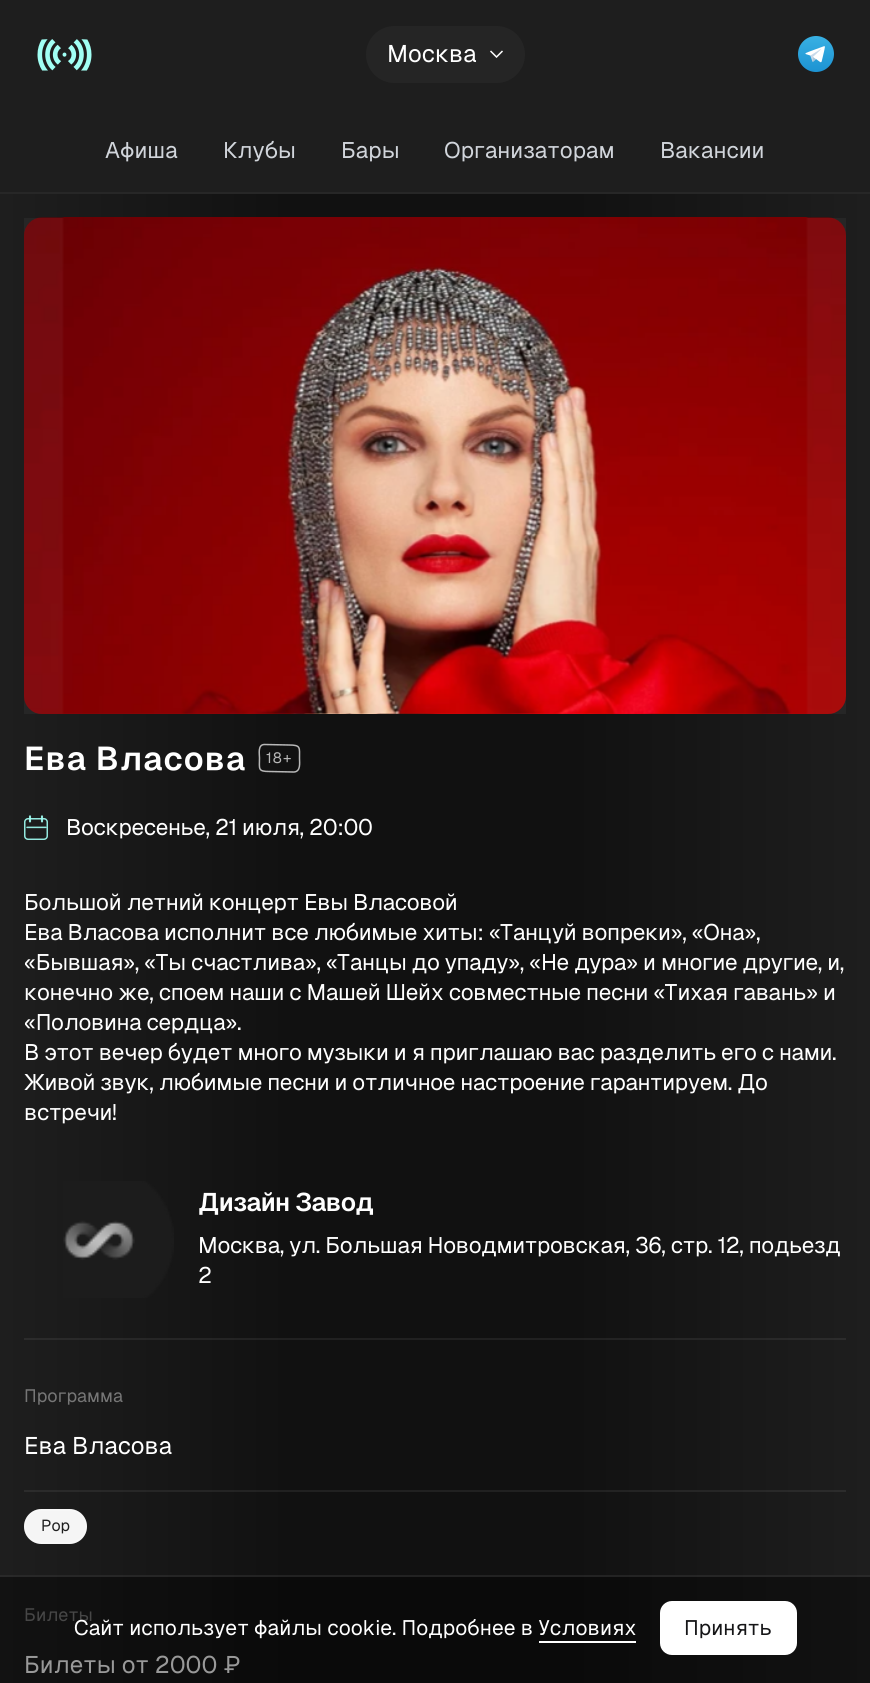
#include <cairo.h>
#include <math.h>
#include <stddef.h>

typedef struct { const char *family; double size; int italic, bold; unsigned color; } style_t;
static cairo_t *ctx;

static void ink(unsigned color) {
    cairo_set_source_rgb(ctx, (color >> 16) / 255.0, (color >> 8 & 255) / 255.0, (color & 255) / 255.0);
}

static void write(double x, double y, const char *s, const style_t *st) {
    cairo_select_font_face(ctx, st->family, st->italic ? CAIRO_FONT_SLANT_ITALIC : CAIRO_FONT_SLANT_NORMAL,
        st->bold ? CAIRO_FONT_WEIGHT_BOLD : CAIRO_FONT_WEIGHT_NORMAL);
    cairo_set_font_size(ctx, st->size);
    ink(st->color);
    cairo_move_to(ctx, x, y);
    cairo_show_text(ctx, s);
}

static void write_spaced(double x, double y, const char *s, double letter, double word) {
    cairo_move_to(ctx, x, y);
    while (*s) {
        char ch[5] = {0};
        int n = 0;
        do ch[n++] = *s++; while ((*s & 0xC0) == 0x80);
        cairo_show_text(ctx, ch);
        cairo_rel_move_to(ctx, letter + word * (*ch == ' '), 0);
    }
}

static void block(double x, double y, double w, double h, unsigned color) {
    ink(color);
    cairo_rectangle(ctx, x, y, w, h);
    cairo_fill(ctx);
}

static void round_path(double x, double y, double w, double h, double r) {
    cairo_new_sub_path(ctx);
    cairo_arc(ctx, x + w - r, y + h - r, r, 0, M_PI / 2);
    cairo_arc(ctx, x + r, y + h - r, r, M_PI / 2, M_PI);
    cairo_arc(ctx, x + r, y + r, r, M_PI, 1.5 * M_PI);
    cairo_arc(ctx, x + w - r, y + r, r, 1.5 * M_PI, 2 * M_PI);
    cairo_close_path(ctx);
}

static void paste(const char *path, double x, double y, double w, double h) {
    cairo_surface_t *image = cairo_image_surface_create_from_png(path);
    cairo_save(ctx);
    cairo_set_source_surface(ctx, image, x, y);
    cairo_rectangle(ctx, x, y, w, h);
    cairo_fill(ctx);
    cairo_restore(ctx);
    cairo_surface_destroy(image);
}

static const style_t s1 = {"Geist", 24, 0, 0, 0xffffff};
static const style_t s2 = {"Geist", 22.5, 0, 0, 0xd1d5db};
static const style_t s3 = {"Geist", 18, 0, 0, 0x767676};
static const style_t s4 = {"Geist", 16, 0, 0, 0x202020};
static const style_t s5 = {"Geist", 21, 0, 0, 0xffffff};
static const style_t s6 = {"Geist", 21, 0, 0, 0x151517};

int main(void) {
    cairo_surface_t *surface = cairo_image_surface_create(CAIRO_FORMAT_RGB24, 870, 1683);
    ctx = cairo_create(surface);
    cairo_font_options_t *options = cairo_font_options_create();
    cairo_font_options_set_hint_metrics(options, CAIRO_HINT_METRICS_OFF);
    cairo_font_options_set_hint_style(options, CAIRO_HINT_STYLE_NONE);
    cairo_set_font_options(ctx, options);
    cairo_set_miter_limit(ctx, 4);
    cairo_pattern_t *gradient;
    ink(0xffffff);
    cairo_paint(ctx);
    block(0, 0, 870, 192, 0x1e1e1e);
    block(0, 192, 870, 2, 0x272727);
    paste("pic1.png", 37, 39, 55, 32);
    ink(0x252525);
    round_path(366, 26, 159, 57, 28.5);
    cairo_fill(ctx);
    write(387, 62, "Москва", &s1);
    cairo_new_path(ctx);
    cairo_move_to(ctx, 490.5, 51);
    cairo_line_to(ctx, 496.5, 57);
    cairo_line_to(ctx, 502.5, 51);
    cairo_set_line_width(ctx, 1.5);
    cairo_stroke(ctx);
    paste("pic2.png", 798, 36, 36, 36);
    write(105, 158, "Афиша", &s2);
    write(223, 158, "Клубы", &s2);
    write(341, 158, "Бары", &s2);
    write(444, 158, "Организаторам", &s2);
    write(660, 158, "Вакансии", &s2);
    gradient = cairo_pattern_create_linear(0, 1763, 870, 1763);
    cairo_pattern_add_color_stop_rgba(gradient, 0, 0.118, 0.118, 0.118, 1);
    cairo_pattern_add_color_stop_rgba(gradient, 0.33, 0.067, 0.067, 0.067, 1);
    cairo_pattern_add_color_stop_rgba(gradient, 0.66, 0.067, 0.067, 0.067, 1);
    cairo_pattern_add_color_stop_rgba(gradient, 1, 0.118, 0.118, 0.118, 1);
    cairo_set_source(ctx, gradient);
    cairo_pattern_destroy(gradient);
    cairo_rectangle(ctx, 0, 194, 870, 1489);
    cairo_fill(ctx);
    paste("pic3.png", 24, 217, 822, 497);
    cairo_set_source_rgba(ctx, 0.631, 0.631, 0.631, 0.07);
    cairo_rectangle(ctx, 24, 218, 822, 496);
    cairo_fill(ctx);
    paste("pic4.png", 62, 217, 746, 497);
    cairo_select_font_face(ctx, "Geist SemiBold", CAIRO_FONT_SLANT_NORMAL, CAIRO_FONT_WEIGHT_NORMAL);
    cairo_set_font_size(ctx, 33);
    ink(0xffffff);
    cairo_save(ctx);
    cairo_translate(ctx, 24, 770);
    cairo_rotate(ctx, 0.1 * M_PI / 180);
    write_spaced(0, 0, "Ева Власова", 1.1, 0);
    cairo_restore(ctx);
    cairo_new_path(ctx);
    cairo_move_to(ctx, 264.5, 744.5);
    cairo_line_to(ctx, 289, 745);
    cairo_curve_to(ctx, 301, 745, 299.5, 747.5, 299.5, 758.5);
    cairo_curve_to(ctx, 299.5, 762.5, 301, 771.5, 294, 772);
    cairo_line_to(ctx, 269.5, 771.5);
    cairo_curve_to(ctx, 257.5, 771.5, 259.5, 769, 259.5, 758);
    cairo_curve_to(ctx, 259.5, 754, 257.5, 744.5, 264.5, 744.5);
    cairo_close_path(ctx);
    ink(0xb8b8b8);
    cairo_stroke(ctx);
    cairo_select_font_face(ctx, "Geist", CAIRO_FONT_SLANT_NORMAL, CAIRO_FONT_WEIGHT_NORMAL);
    cairo_set_font_size(ctx, 15);
    cairo_save(ctx);
    cairo_translate(ctx, 266, 763);
    cairo_rotate(ctx, 0.1 * M_PI / 180);
    write_spaced(0, 0, "18+", 1.1, 0);
    cairo_restore(ctx);
    paste("pic5.png", 24, 815, 24, 25);
    cairo_set_font_size(ctx, 22.5);
    ink(0xffffff);
    write_spaced(66, 835, "Воскресенье, 21 июля, 20:00", -0.35, 0);
    write_spaced(24, 910, "Большой летний концерт Евы Власовой", -0.35, 0);
    write_spaced(24, 940, "Ева Власова исполнит все любимые хиты: «Танцуй вопреки», «Она»,", -0.35, 0);
    write_spaced(24, 970, "«Бывшая», «Ты счастлива», «Танцы до упаду», «Не дура» и многие другие, и,", -0.35, 0);
    write_spaced(24, 1000, "конечно же, споем наши с Машей Шейх совместные песни «Тихая гавань» и", -0.35, 0);
    write_spaced(24, 1030, "«Половина сердца».", -0.35, 0);
    write_spaced(24, 1060, "В этот вечер будет много музыки и я приглашаю вас разделить его с нами.", -0.35, 0);
    write_spaced(24, 1090, "Живой звук, любимые песни и отличное настроение гарантируем. До", -0.35, 0);
    write_spaced(24, 1120, "встречи!", -0.35, 0);
    cairo_set_source_rgba(ctx, 1, 1, 1, 0.07);
    cairo_rectangle(ctx, 24, 1338, 822, 2);
    cairo_fill(ctx);
    paste("pic6.png", 63, 1181, 111, 117);
    cairo_select_font_face(ctx, "Geist SemiBold", CAIRO_FONT_SLANT_NORMAL, CAIRO_FONT_WEIGHT_NORMAL);
    cairo_set_font_size(ctx, 25.5);
    ink(0xffffff);
    write_spaced(198, 1211, "Дизайн Завод", -0.6, 0);
    cairo_select_font_face(ctx, "Geist", CAIRO_FONT_SLANT_NORMAL, CAIRO_FONT_WEIGHT_NORMAL);
    cairo_set_font_size(ctx, 22.5);
    write_spaced(198, 1253, "Москва, ул. Большая Новодмитровская, 36, стр. 12, подьезд", -0.35, 0);
    write_spaced(198, 1283, "2", -0.35, 0);
    write(24, 1402, "Программа", &s3);
    cairo_set_source_rgba(ctx, 1, 1, 1, 0.07);
    cairo_rectangle(ctx, 24, 1490, 822, 2);
    cairo_fill(ctx);
    write(24, 1454, "Ева Власова", &s1);
    ink(0xf5f5f5);
    round_path(24, 1509, 63, 35, 17.5);
    cairo_fill(ctx);
    round_path(25, 1510, 61, 33, 16.5);
    cairo_set_source_rgba(ctx, 1, 1, 1, 0.2);
    cairo_set_line_width(ctx, 2);
    cairo_stroke(ctx);
    write(41, 1531, "Pop", &s4);
    write(24, 1621, "Билеты", &s3);
    write(24, 1673, "Билеты от 2000 ₽", &s1);
    cairo_set_source_rgba(ctx, 0, 0, 0, 0.4);
    cairo_rectangle(ctx, 0, 1575, 870, 108);
    cairo_fill(ctx);
    cairo_set_source_rgba(ctx, 1, 1, 1, 0.1);
    cairo_rectangle(ctx, 0, 1575, 870, 2);
    cairo_fill(ctx);
    write(74, 1635, "Сайт использует файлы cookie. Подробнее в Условиях", &s5);
    block(539, 1641, 97, 2, 0xffffff);
    round_path(660, 1601, 137, 54, 12);
    cairo_fill(ctx);
    write(684, 1635, "Принять", &s6);
    cairo_surface_write_to_png(surface, "screenshot.png");
    cairo_font_options_destroy(options);
    cairo_destroy(ctx);
    cairo_surface_destroy(surface);
    return 0;
}
